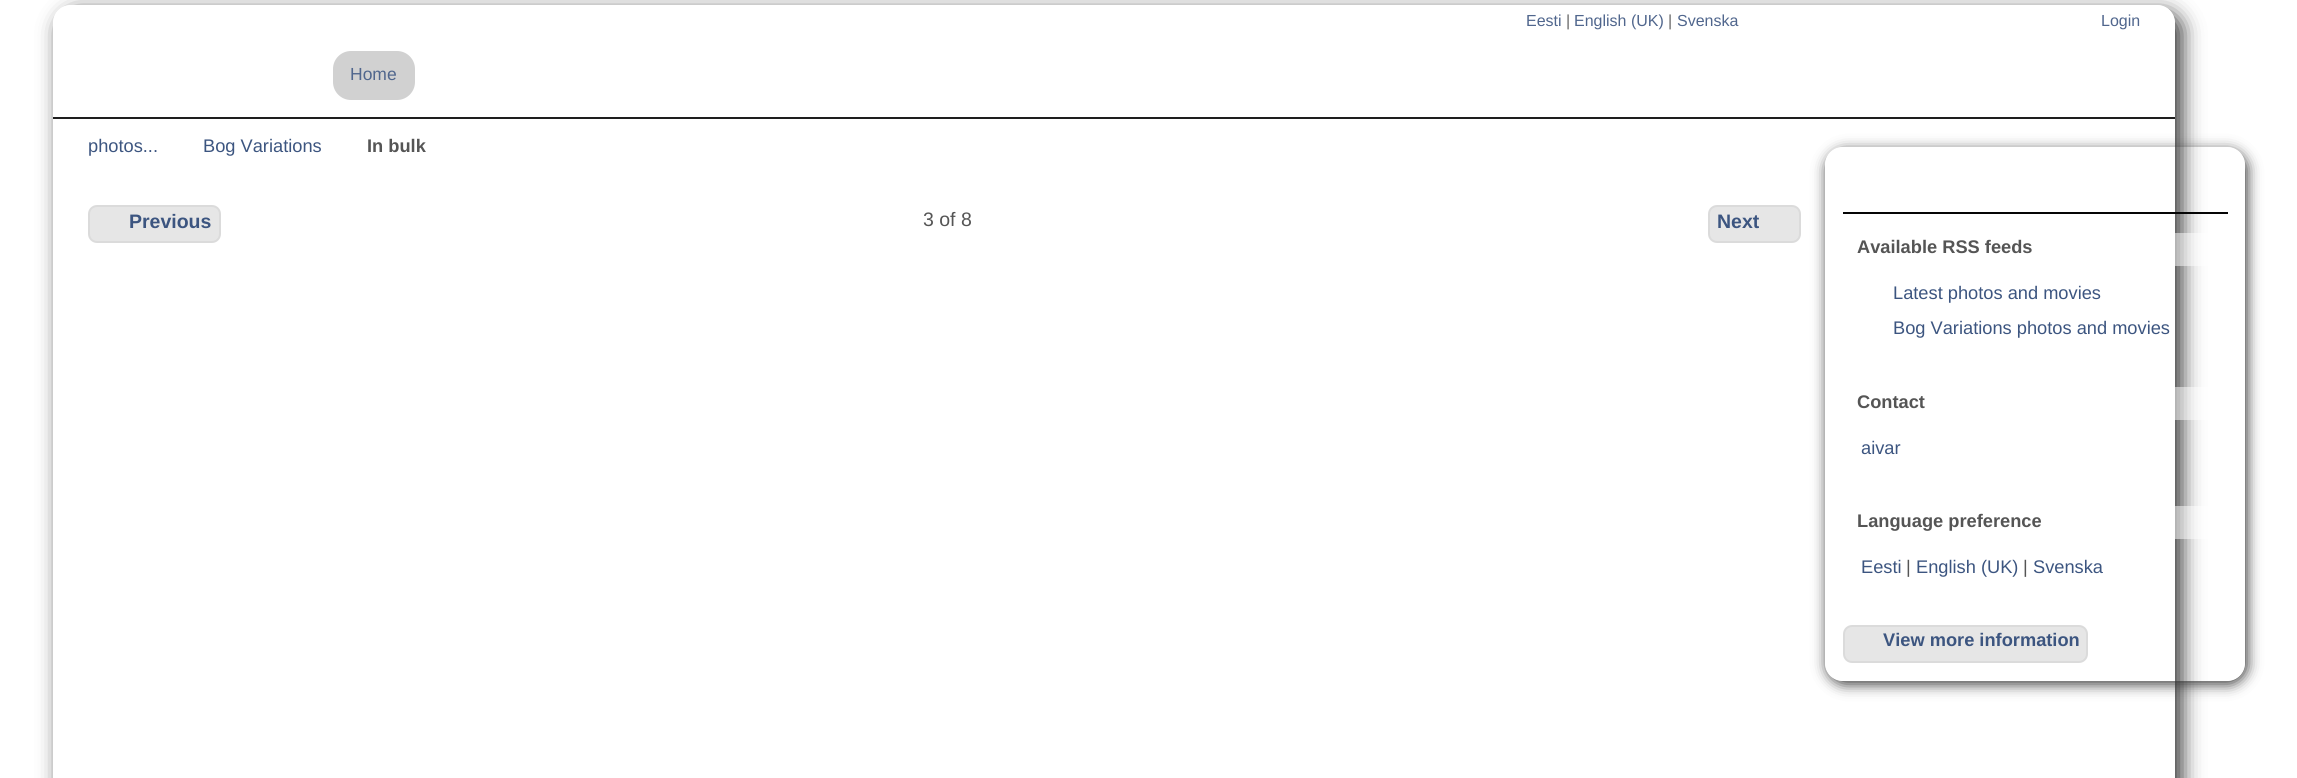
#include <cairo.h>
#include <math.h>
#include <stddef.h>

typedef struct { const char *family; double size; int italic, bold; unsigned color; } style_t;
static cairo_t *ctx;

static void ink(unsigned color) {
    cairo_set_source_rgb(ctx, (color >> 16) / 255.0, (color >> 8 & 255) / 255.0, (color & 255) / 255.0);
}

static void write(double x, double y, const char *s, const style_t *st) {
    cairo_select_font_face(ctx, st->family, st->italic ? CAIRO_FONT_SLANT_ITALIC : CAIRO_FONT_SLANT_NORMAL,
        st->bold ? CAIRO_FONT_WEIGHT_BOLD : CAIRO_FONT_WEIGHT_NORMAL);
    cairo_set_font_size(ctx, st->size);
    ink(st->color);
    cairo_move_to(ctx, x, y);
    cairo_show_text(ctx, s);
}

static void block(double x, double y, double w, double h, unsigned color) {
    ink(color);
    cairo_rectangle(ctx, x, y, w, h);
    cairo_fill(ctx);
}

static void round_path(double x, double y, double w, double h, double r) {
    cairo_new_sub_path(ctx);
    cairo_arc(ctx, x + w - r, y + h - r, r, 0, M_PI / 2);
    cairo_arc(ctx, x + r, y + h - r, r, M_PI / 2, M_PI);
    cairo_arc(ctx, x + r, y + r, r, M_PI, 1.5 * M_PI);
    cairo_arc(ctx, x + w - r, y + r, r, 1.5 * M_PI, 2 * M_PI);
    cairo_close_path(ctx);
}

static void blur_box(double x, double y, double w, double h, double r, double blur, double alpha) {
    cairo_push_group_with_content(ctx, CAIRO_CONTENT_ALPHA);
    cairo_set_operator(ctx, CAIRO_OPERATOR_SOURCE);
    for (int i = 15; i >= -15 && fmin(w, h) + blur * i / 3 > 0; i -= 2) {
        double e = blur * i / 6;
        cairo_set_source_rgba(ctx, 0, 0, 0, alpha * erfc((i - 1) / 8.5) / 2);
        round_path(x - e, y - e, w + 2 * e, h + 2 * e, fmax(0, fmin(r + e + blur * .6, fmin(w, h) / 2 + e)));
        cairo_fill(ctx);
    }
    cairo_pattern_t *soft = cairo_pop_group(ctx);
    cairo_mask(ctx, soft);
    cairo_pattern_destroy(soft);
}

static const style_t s1 = {"Liberation Sans", 16, 0, 0, 0x50668d};
static const style_t s2 = {"Liberation Sans", 16, 0, 0, 0x666666};
static const style_t s3 = {"Liberation Sans", 17.5, 0, 0, 0x50668d};
static const style_t s4 = {"Liberation Sans", 18.25, 0, 0, 0x3c5580};
static const style_t s5 = {"Liberation Sans", 18.25, 0, 1, 0x555555};
static const style_t s6 = {"Liberation Sans", 19.5, 0, 1, 0x3c5580};
static const style_t s7 = {"Liberation Sans", 19.5, 0, 0, 0x555555};
static const style_t s8 = {"Liberation Sans", 18.25, 0, 0, 0x555555};
static const style_t s9 = {"Liberation Sans", 18.25, 0, 1, 0x3c5580};

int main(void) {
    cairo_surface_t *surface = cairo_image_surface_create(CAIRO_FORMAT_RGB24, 2297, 778);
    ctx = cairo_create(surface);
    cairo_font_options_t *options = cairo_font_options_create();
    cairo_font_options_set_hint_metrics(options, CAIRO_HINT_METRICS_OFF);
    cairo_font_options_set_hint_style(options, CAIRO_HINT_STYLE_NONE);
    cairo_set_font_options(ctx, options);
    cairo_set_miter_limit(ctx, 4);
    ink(0xffffff);
    cairo_paint(ctx);
    cairo_save(ctx);
    cairo_set_fill_rule(ctx, CAIRO_FILL_RULE_EVEN_ODD);
    cairo_new_path(ctx);
    cairo_move_to(ctx, 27, 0);
    cairo_line_to(ctx, 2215, 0);
    cairo_line_to(ctx, 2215, 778);
    cairo_line_to(ctx, 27, 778);
    cairo_close_path(ctx);
    cairo_move_to(ctx, 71, 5);
    cairo_line_to(ctx, 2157, 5);
    cairo_curve_to(ctx, 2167, 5, 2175, 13, 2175, 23);
    cairo_line_to(ctx, 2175, 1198);
    cairo_curve_to(ctx, 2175, 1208, 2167, 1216, 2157, 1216);
    cairo_line_to(ctx, 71, 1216);
    cairo_curve_to(ctx, 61, 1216, 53, 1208, 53, 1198);
    cairo_line_to(ctx, 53, 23);
    cairo_curve_to(ctx, 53, 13, 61, 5, 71, 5);
    cairo_close_path(ctx);
    cairo_clip(ctx);
    ink(0x333333);
    blur_box(60, 12, 2122, 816, 18, 10.5, 1);
    cairo_restore(ctx);
    block(53, 117, 2122, 2, 0x1e1e1e);
    write(1526, 26, "Eesti", &s1);
    write(1566, 26, "|", &s2);
    write(1574, 26, "English (UK)", &s1);
    write(1668, 26, "|", &s2);
    write(1677, 26, "Svenska", &s1);
    write(2101, 26, "Login", &s1);
    ink(0xd1d1d1);
    round_path(333, 51, 82, 49, 18);
    cairo_fill(ctx);
    write(350, 80, "Home", &s3);
    write(88, 152, "photos...", &s4);
    write(203, 152, "Bog Variations", &s4);
    write(367, 152, "In bulk", &s5);
    ink(0xe6e6e6);
    round_path(89, 206, 131, 36, 8);
    cairo_fill_preserve(ctx);
    ink(0xdbdbdb);
    cairo_stroke(ctx);
    write(129, 228, "Previous", &s6);
    write(923, 226, "3 of 8", &s7);
    ink(0xe6e6e6);
    round_path(1709, 206, 91, 36, 8);
    cairo_fill_preserve(ctx);
    ink(0xdbdbdb);
    cairo_stroke(ctx);
    write(1717, 228, "Next", &s6);
    cairo_save(ctx);
    cairo_set_fill_rule(ctx, CAIRO_FILL_RULE_EVEN_ODD);
    cairo_new_path(ctx);
    cairo_move_to(ctx, 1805, 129);
    cairo_line_to(ctx, 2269, 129);
    cairo_line_to(ctx, 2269, 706);
    cairo_line_to(ctx, 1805, 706);
    cairo_close_path(ctx);
    cairo_move_to(ctx, 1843, 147);
    cairo_line_to(ctx, 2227, 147);
    cairo_curve_to(ctx, 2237, 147, 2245, 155, 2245, 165);
    cairo_line_to(ctx, 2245, 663);
    cairo_curve_to(ctx, 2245, 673, 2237, 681, 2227, 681);
    cairo_line_to(ctx, 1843, 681);
    cairo_curve_to(ctx, 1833, 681, 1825, 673, 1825, 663);
    cairo_line_to(ctx, 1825, 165);
    cairo_curve_to(ctx, 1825, 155, 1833, 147, 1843, 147);
    cairo_close_path(ctx);
    cairo_clip(ctx);
    ink(0x333333);
    blur_box(1827, 151, 420, 533, 18, 7, 1);
    cairo_restore(ctx);
    block(1843, 212, 385, 2, 0x050505);
    cairo_set_source_rgba(ctx, 1, 1, 1, 0.5);
    round_path(1843, 233, 385, 33, 9);
    cairo_fill(ctx);
    write(1857, 253, "Available RSS feeds", &s5);
    write(1893, 299, "Latest photos and movies", &s4);
    write(1893, 334, "Bog Variations photos and movies", &s4);
    cairo_set_source_rgba(ctx, 1, 1, 1, 0.5);
    round_path(1843, 387, 385, 33, 9);
    cairo_fill(ctx);
    write(1857, 408, "Contact", &s5);
    write(1861, 454, "aivar", &s4);
    cairo_set_source_rgba(ctx, 1, 1, 1, 0.5);
    round_path(1843, 506, 385, 33, 9);
    cairo_fill(ctx);
    write(1857, 527, "Language preference", &s5);
    write(1861, 573, "Eesti", &s4);
    write(1906, 573, "|", &s8);
    write(1916, 573, "English (UK)", &s4);
    write(2023, 573, "|", &s8);
    write(2033, 573, "Svenska", &s4);
    ink(0xe6e6e6);
    round_path(1844, 626, 243, 36, 8);
    cairo_fill_preserve(ctx);
    ink(0xdbdbdb);
    cairo_stroke(ctx);
    write(1883, 646, "View more information", &s9);
    cairo_surface_write_to_png(surface, "screenshot.png");
    cairo_font_options_destroy(options);
    cairo_destroy(ctx);
    cairo_surface_destroy(surface);
    return 0;
}
